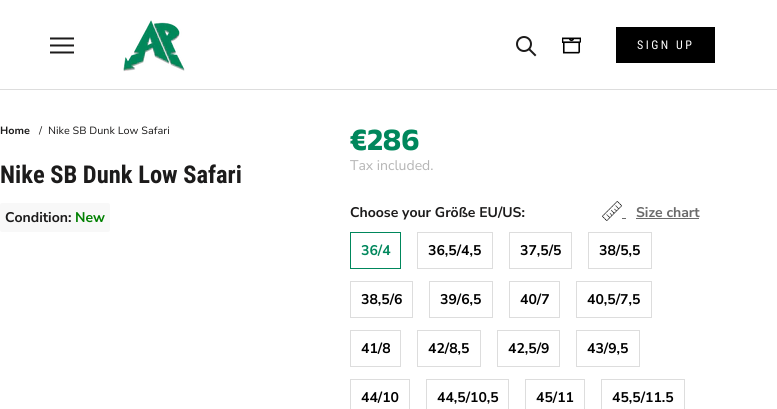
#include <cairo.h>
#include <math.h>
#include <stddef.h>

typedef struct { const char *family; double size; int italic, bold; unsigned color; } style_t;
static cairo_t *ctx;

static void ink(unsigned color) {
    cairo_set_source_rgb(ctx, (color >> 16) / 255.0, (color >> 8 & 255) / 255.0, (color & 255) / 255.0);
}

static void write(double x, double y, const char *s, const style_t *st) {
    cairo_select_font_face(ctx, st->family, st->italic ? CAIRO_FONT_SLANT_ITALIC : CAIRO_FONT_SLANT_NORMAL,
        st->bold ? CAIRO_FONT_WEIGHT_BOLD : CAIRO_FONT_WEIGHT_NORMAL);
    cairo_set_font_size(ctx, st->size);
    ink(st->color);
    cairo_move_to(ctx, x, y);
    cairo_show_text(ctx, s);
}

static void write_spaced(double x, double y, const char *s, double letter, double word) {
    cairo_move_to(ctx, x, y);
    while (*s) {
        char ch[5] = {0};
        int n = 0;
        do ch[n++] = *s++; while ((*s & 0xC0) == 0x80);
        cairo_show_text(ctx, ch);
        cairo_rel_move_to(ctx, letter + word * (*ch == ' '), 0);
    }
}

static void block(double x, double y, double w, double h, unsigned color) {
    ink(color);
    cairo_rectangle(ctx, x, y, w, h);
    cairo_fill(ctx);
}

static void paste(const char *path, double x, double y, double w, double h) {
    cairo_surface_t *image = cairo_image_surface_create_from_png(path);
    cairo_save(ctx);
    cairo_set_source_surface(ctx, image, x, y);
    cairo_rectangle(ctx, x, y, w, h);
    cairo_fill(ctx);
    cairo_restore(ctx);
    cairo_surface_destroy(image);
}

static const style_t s1 = {"Nunito Sans", 10.5, 0, 1, 0x1c1b1b};
static const style_t s2 = {"Nunito Sans", 10.5, 0, 0, 0x1c1b1b};
static const style_t s3 = {"Roboto Condensed", 24.5, 0, 1, 0x1c1b1b};
static const style_t s4 = {"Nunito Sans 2", 14, 0, 1, 0x1c1b1b};
static const style_t s5 = {"Nunito Sans 2", 14, 0, 1, 0x008000};
static const style_t s6 = {"Anek Bangla Medium", 31.5, 0, 0, 0x00875c};
static const style_t s7 = {"Nunito Sans 2", 14, 0, 0, 0xb5b5b5};
static const style_t s8 = {"Nunito Sans 2", 14, 0, 1, 0x6a6a6a};
static const style_t s9 = {"Nunito Sans 2", 14, 0, 1, 0x00875c};
static const style_t s10 = {"Nunito Sans 2", 14, 0, 1, 0x000000};

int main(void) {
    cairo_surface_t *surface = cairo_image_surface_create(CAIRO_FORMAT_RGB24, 777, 409);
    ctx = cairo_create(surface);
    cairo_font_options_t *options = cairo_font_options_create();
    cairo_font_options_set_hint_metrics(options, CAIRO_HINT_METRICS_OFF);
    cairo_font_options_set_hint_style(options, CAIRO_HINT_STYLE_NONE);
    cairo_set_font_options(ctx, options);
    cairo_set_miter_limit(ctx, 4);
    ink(0xffffff);
    cairo_paint(ctx);
    block(0, 89, 777, 1, 0xdddddd);
    paste("pic1.png", 50, 37, 24, 17);
    paste("pic2.png", 123, 20, 62, 52);
    cairo_new_path(ctx);
    cairo_move_to(ctx, 535, 55);
    cairo_line_to(ctx, 529.5, 49.5);
    ink(0x1c1b1b);
    cairo_set_line_cap(ctx, CAIRO_LINE_CAP_SQUARE);
    cairo_stroke(ctx);
    cairo_arc(ctx, 524, 44, 7, 0, 2 * M_PI);
    cairo_set_line_cap(ctx, CAIRO_LINE_CAP_BUTT);
    cairo_stroke(ctx);
    paste("pic3.png", 562, 37, 19, 17);
    cairo_rectangle(ctx, 616.5, 27.5, 98, 35);
    ink(0x000000);
    cairo_set_line_width(ctx, 1);
    cairo_stroke(ctx);
    block(617, 28, 97, 34, 0x000000);
    cairo_select_font_face(ctx, "Roboto Condensed", CAIRO_FONT_SLANT_NORMAL, CAIRO_FONT_WEIGHT_NORMAL);
    cairo_set_font_size(ctx, 12);
    ink(0xffffff);
    write_spaced(637, 49, "SIGN UP", 2.5, 0);
    write(0, 134, "Home", &s1);
    write(39, 134, "/", &s2);
    write(48, 134, "Nike SB Dunk Low Safari", &s2);
    write(0, 183, "Nike SB Dunk Low Safari", &s3);
    ink(0xf8f8f8);
    cairo_new_path(ctx);
    cairo_move_to(ctx, 2, 203);
    cairo_line_to(ctx, 75, 203);
    cairo_line_to(ctx, 75, 232);
    cairo_line_to(ctx, 2, 232);
    cairo_curve_to(ctx, 1, 232, 0, 231, 0, 230);
    cairo_line_to(ctx, 0, 205);
    cairo_curve_to(ctx, 0, 204, 1, 203, 2, 203);
    cairo_close_path(ctx);
    cairo_fill(ctx);
    write(5, 222, "Condition:", &s4);
    ink(0xf8f8f8);
    cairo_new_path(ctx);
    cairo_move_to(ctx, 75, 203);
    cairo_line_to(ctx, 108, 203);
    cairo_curve_to(ctx, 109, 203, 110, 204, 110, 205);
    cairo_line_to(ctx, 110, 230);
    cairo_curve_to(ctx, 110, 231, 109, 232, 108, 232);
    cairo_line_to(ctx, 75, 232);
    cairo_close_path(ctx);
    cairo_fill(ctx);
    write(75, 222, "New", &s5);
    write(350, 150, "€286", &s6);
    write(350, 170, "Tax included.", &s7);
    write(350, 217, "Choose your Größe EU/US:", &s4);
    paste("pic4.png", 602, 201, 20, 20);
    write(636, 217, "Size chart", &s8);
    block(636, 218, 63, 1, 0x6a6a6a);
    block(622, 218, 4, 1, 0x6a6a6a);
    cairo_rectangle(ctx, 350.5, 232.5, 50, 36);
    ink(0x00875c);
    cairo_stroke(ctx);
    write(361, 255, "36/4", &s9);
    cairo_rectangle(ctx, 417.5, 232.5, 75, 36);
    ink(0xdddddd);
    cairo_stroke(ctx);
    write(428, 255, "36,5/4,5", &s10);
    cairo_rectangle(ctx, 509.5, 232.5, 62, 36);
    ink(0xdddddd);
    cairo_stroke(ctx);
    write(520, 255, "37,5/5", &s10);
    cairo_rectangle(ctx, 588.5, 232.5, 63, 36);
    ink(0xdddddd);
    cairo_stroke(ctx);
    write(599, 255, "38/5,5", &s10);
    cairo_rectangle(ctx, 350.5, 281.5, 62, 36);
    ink(0xdddddd);
    cairo_stroke(ctx);
    write(361, 304, "38,5/6", &s10);
    cairo_rectangle(ctx, 429.5, 281.5, 63, 36);
    ink(0xdddddd);
    cairo_stroke(ctx);
    write(440, 304, "39/6,5", &s10);
    cairo_rectangle(ctx, 509.5, 281.5, 50, 36);
    ink(0xdddddd);
    cairo_stroke(ctx);
    write(520, 304, "40/7", &s10);
    cairo_rectangle(ctx, 576.5, 281.5, 75, 36);
    ink(0xdddddd);
    cairo_stroke(ctx);
    write(587, 304, "40,5/7,5", &s10);
    cairo_rectangle(ctx, 350.5, 330.5, 50, 36);
    ink(0xdddddd);
    cairo_stroke(ctx);
    write(361, 353, "41/8", &s10);
    cairo_rectangle(ctx, 417.5, 330.5, 63, 36);
    ink(0xdddddd);
    cairo_stroke(ctx);
    write(428, 353, "42/8,5", &s10);
    cairo_rectangle(ctx, 497.5, 330.5, 62, 36);
    ink(0xdddddd);
    cairo_stroke(ctx);
    write(508, 353, "42,5/9", &s10);
    cairo_rectangle(ctx, 576.5, 330.5, 63, 36);
    ink(0xdddddd);
    cairo_stroke(ctx);
    write(587, 353, "43/9,5", &s10);
    cairo_rectangle(ctx, 350.5, 379.5, 59, 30);
    ink(0xdddddd);
    cairo_stroke(ctx);
    write(361, 402, "44/10", &s10);
    cairo_rectangle(ctx, 426.5, 379.5, 82, 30);
    ink(0xdddddd);
    cairo_stroke(ctx);
    write(437, 402, "44,5/10,5", &s10);
    cairo_rectangle(ctx, 525.5, 379.5, 59, 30);
    ink(0xdddddd);
    cairo_stroke(ctx);
    write(536, 402, "45/11", &s10);
    cairo_rectangle(ctx, 601.5, 379.5, 83, 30);
    ink(0xdddddd);
    cairo_stroke(ctx);
    write(612, 402, "45,5/11.5", &s10);
    cairo_surface_write_to_png(surface, "screenshot.png");
    cairo_font_options_destroy(options);
    cairo_destroy(ctx);
    cairo_surface_destroy(surface);
    return 0;
}
